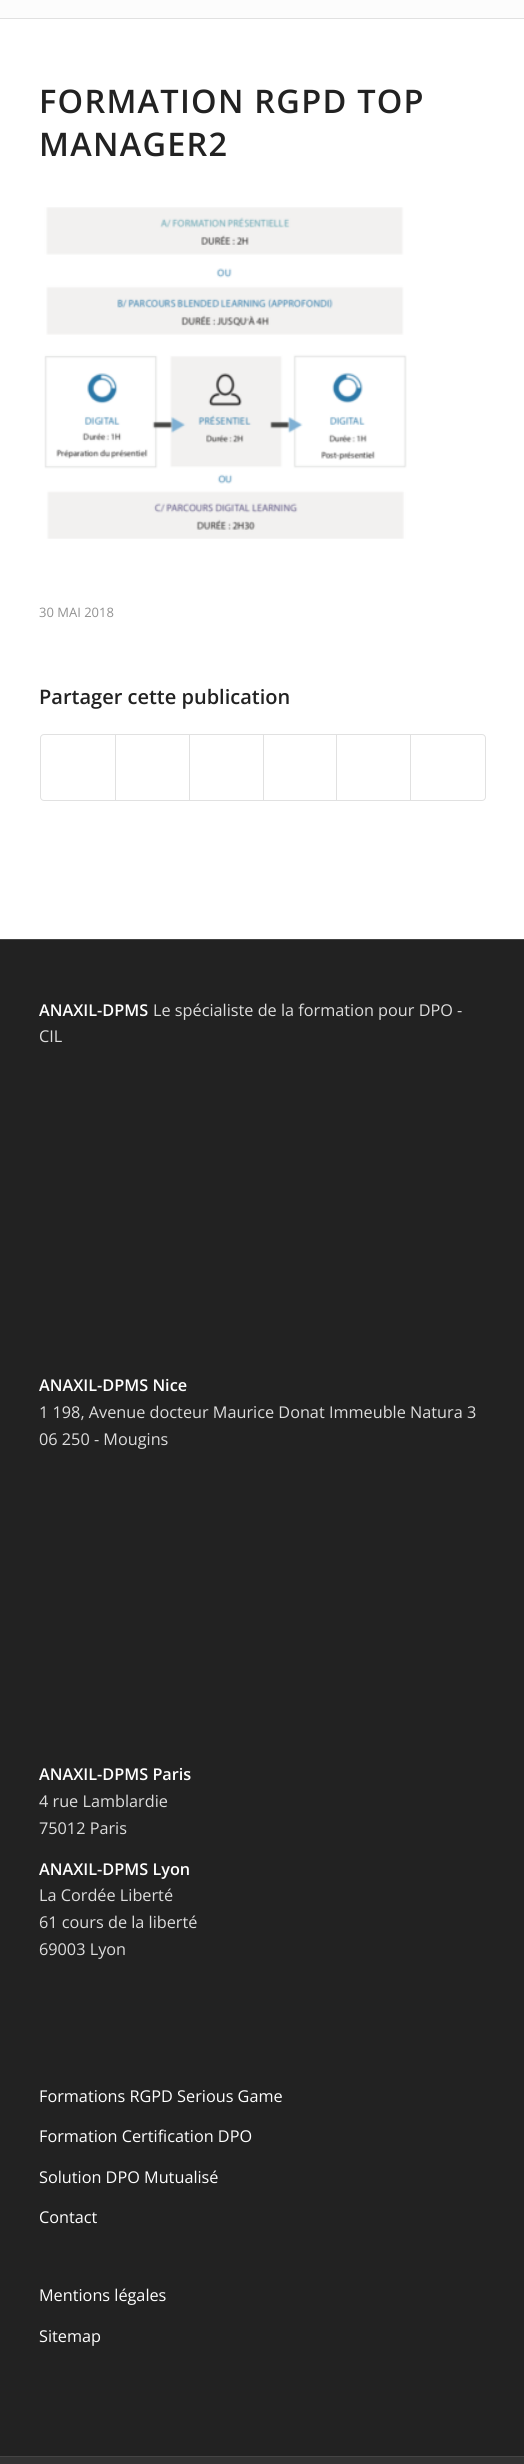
#include <cairo.h>
#include <math.h>
#include <stddef.h>

typedef struct { const char *family; double size; int italic, bold; unsigned color; } style_t;
static cairo_t *ctx;

static void ink(unsigned color) {
    cairo_set_source_rgb(ctx, (color >> 16) / 255.0, (color >> 8 & 255) / 255.0, (color & 255) / 255.0);
}

static void write(double x, double y, const char *s, const style_t *st) {
    cairo_select_font_face(ctx, st->family, st->italic ? CAIRO_FONT_SLANT_ITALIC : CAIRO_FONT_SLANT_NORMAL,
        st->bold ? CAIRO_FONT_WEIGHT_BOLD : CAIRO_FONT_WEIGHT_NORMAL);
    cairo_set_font_size(ctx, st->size);
    ink(st->color);
    cairo_move_to(ctx, x, y);
    cairo_show_text(ctx, s);
}

static void write_spaced(double x, double y, const char *s, double letter, double word) {
    cairo_move_to(ctx, x, y);
    while (*s) {
        char ch[5] = {0};
        int n = 0;
        do ch[n++] = *s++; while ((*s & 0xC0) == 0x80);
        cairo_show_text(ctx, ch);
        cairo_rel_move_to(ctx, letter + word * (*ch == ' '), 0);
    }
}

static void block(double x, double y, double w, double h, unsigned color) {
    ink(color);
    cairo_rectangle(ctx, x, y, w, h);
    cairo_fill(ctx);
}

static void round_path(double x, double y, double w, double h, double r) {
    cairo_new_sub_path(ctx);
    cairo_arc(ctx, x + w - r, y + h - r, r, 0, M_PI / 2);
    cairo_arc(ctx, x + r, y + h - r, r, M_PI / 2, M_PI);
    cairo_arc(ctx, x + r, y + r, r, M_PI, 1.5 * M_PI);
    cairo_arc(ctx, x + w - r, y + r, r, 1.5 * M_PI, 2 * M_PI);
    cairo_close_path(ctx);
}

static void paste(const char *path, double x, double y, double w, double h) {
    cairo_surface_t *image = cairo_image_surface_create_from_png(path);
    cairo_save(ctx);
    cairo_set_source_surface(ctx, image, x, y);
    cairo_rectangle(ctx, x, y, w, h);
    cairo_fill(ctx);
    cairo_restore(ctx);
    cairo_surface_destroy(image);
}

static const style_t s1 = {"Open Sans", 13, 0, 0, 0x919191};
static const style_t s2 = {"Open Sans SemiBold", 20, 0, 0, 0x222222};
static const style_t s3 = {"Open Sans SemiBold", 16.25, 0, 0, 0xffffff};
static const style_t s4 = {"Open Sans", 16.25, 0, 0, 0xdddddd};
static const style_t s5 = {"Open Sans", 16.25, 0, 0, 0xffffff};

int main(void) {
    cairo_surface_t *surface = cairo_image_surface_create(CAIRO_FORMAT_RGB24, 524, 2464);
    ctx = cairo_create(surface);
    cairo_font_options_t *options = cairo_font_options_create();
    cairo_font_options_set_hint_metrics(options, CAIRO_HINT_METRICS_OFF);
    cairo_font_options_set_hint_style(options, CAIRO_HINT_STYLE_NONE);
    cairo_set_font_options(ctx, options);
    cairo_set_miter_limit(ctx, 4);
    ink(0xffffff);
    cairo_paint(ctx);
    block(0, 0, 524, 18, 0xfcfcfc);
    block(0, 18, 524, 1, 0xe1e1e1);
    cairo_select_font_face(ctx, "Open Sans SemiBold", CAIRO_FONT_SLANT_NORMAL, CAIRO_FONT_WEIGHT_NORMAL);
    cairo_set_font_size(ctx, 32.5);
    ink(0x222222);
    write_spaced(39, 113, "FORMATION RGPD TOP", 1.25, 0);
    write_spaced(39, 156, "MANAGER2", 1.25, 0);
    paste("pic1.png", 44, 207, 363, 332);
    write(39, 617, "30 MAI 2018", &s1);
    write(39, 704, "Partager cette publication", &s2);
    round_path(40.5, 734.5, 445, 66, 3.5);
    ink(0xe1e1e1);
    cairo_set_line_width(ctx, 1);
    cairo_stroke(ctx);
    block(115, 735, 1, 65, 0xe1e1e1);
    block(189, 735, 1, 65, 0xe1e1e1);
    block(263, 735, 1, 65, 0xe1e1e1);
    block(336, 735, 1, 65, 0xe1e1e1);
    block(410, 735, 1, 65, 0xe1e1e1);
    block(0, 940, 524, 1516, 0x222222);
    block(0, 939, 524, 1, 0x444444);
    write(39, 1016, "ANAXIL-DPMS", &s3);
    write(153, 1016, "Le spécialiste de la formation pour DPO -", &s4);
    write(39, 1042, "CIL", &s4);
    write(39, 1391, "ANAXIL-DPMS Nice", &s3);
    write(39, 1418, "1 198, Avenue docteur Maurice Donat Immeuble Natura 3", &s4);
    write(39, 1445, "06 250 - Mougins", &s4);
    write(39, 1780, "ANAXIL-DPMS Paris", &s3);
    write(39, 1807, "4 rue Lamblardie", &s4);
    write(39, 1834, "75012 Paris", &s4);
    write(39, 1875, "ANAXIL-DPMS Lyon", &s3);
    write(39, 1901, "La Cordée Liberté", &s4);
    write(39, 1928, "61 cours de la liberté", &s4);
    write(39, 1955, "69003 Lyon", &s4);
    write(39, 2102, "Formations RGPD Serious Game", &s5);
    write(39, 2142, "Formation Certification DPO", &s5);
    write(39, 2183, "Solution DPO Mutualisé", &s5);
    write(39, 2223, "Contact", &s5);
    write(39, 2301, "Mentions légales", &s5);
    write(39, 2342, "Sitemap", &s5);
    block(0, 2457, 524, 7, 0x333333);
    block(0, 2456, 524, 1, 0x444444);
    cairo_surface_write_to_png(surface, "screenshot.png");
    cairo_font_options_destroy(options);
    cairo_destroy(ctx);
    cairo_surface_destroy(surface);
    return 0;
}
